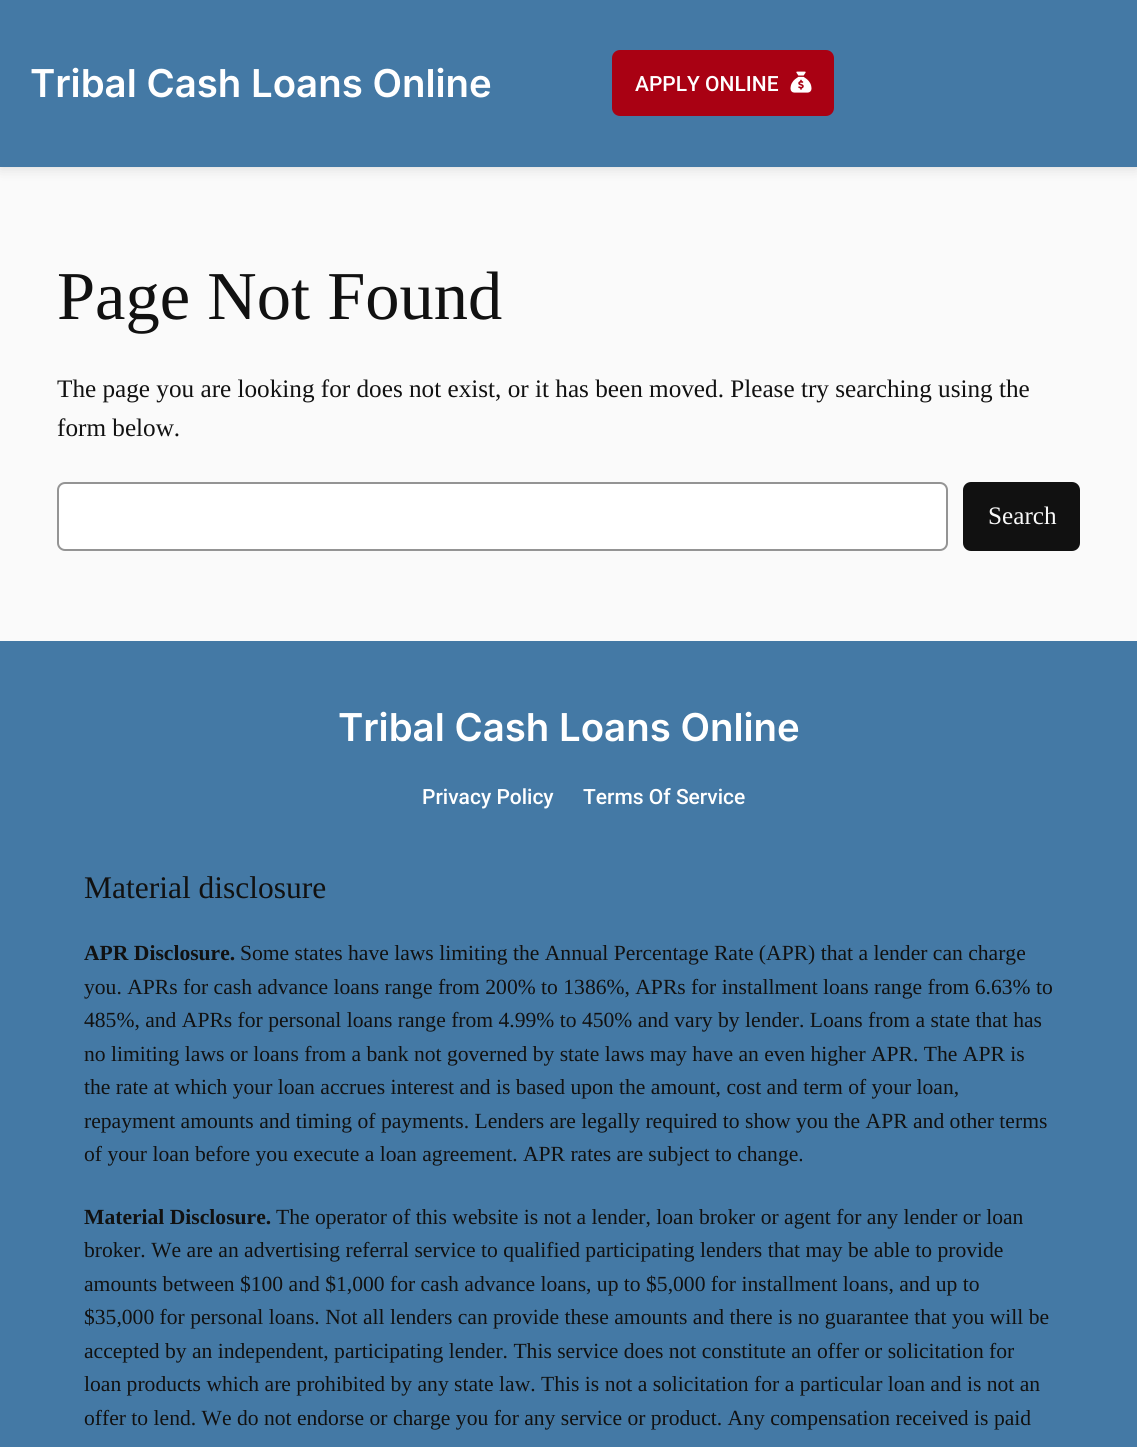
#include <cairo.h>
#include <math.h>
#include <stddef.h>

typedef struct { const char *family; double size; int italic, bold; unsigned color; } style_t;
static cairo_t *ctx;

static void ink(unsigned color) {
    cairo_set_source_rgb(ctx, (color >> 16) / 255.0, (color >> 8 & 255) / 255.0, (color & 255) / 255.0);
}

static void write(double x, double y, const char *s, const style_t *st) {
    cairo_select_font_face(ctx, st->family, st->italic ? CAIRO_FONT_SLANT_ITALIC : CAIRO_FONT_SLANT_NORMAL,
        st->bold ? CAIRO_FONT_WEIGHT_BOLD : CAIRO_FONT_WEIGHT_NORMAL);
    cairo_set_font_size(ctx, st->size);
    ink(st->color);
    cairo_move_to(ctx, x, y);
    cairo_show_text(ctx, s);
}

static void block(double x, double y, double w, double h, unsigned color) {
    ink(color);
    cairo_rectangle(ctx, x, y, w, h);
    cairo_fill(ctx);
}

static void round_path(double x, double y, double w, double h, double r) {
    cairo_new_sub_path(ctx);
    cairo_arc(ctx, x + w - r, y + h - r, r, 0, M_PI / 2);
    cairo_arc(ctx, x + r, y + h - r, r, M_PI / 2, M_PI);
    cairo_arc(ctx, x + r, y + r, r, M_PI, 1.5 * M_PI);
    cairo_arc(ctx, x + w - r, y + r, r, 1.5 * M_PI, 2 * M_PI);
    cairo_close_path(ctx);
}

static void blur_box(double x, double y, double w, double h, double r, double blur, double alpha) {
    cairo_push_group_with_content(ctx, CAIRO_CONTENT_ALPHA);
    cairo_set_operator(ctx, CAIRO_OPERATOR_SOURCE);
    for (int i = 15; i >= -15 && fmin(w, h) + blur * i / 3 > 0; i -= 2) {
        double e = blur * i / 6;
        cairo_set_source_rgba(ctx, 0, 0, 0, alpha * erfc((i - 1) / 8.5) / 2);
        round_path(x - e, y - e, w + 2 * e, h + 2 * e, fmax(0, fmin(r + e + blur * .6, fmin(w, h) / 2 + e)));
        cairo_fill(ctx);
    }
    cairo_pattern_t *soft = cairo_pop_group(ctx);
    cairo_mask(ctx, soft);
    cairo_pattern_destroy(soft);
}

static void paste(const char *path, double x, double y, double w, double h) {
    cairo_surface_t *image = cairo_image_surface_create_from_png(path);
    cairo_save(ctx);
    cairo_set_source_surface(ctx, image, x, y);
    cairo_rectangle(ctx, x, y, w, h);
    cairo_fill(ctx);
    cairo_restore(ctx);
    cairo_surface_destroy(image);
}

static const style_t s1 = {"Inter SemiBold", 38.4, 0, 0, 0xffffff};
static const style_t s2 = {"Roboto Medium", 21, 0, 0, 0xffffff};
static const style_t s3 = {"Liberation Serif", 68.5, 0, 0, 0x111111};
static const style_t s4 = {"Liberation Serif", 25.2, 0, 0, 0x111111};
static const style_t s5 = {"Liberation Serif", 25.2, 0, 0, 0xf9f9f9};
static const style_t s6 = {"Liberation Serif", 31.5, 0, 0, 0x111111};
static const style_t s7 = {"Liberation Serif", 21.6, 0, 1, 0x111111};
static const style_t s8 = {"Liberation Serif", 21.6, 0, 0, 0x111111};

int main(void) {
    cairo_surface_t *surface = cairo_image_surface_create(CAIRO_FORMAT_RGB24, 1137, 1447);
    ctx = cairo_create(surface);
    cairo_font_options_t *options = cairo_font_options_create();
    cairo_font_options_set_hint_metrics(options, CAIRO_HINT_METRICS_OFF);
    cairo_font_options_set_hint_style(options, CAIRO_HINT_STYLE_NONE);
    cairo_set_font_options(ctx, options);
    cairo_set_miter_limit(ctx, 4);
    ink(0xfafafa);
    cairo_paint(ctx);
    ink(0x000000);
    blur_box(0, 0, 1137, 167, 0, 7.5, 0.15);
    block(0, 0, 1137, 167, 0x4479a5);
    write(30, 97, "Tribal Cash Loans Online", &s1);
    ink(0xa90113);
    round_path(612, 50, 222, 66, 8);
    cairo_fill(ctx);
    write(635, 91, "APPLY ONLINE", &s2);
    paste("pic1.png", 790, 71, 22, 22);
    write(57, 319, "Page Not Found", &s3);
    write(57, 397, "The page you are looking for does not exist, or it has been moved. Please try searching using the", &s4);
    write(57, 436, "form below.", &s4);
    ink(0xffffff);
    round_path(58, 483, 889, 67, 7);
    cairo_fill_preserve(ctx);
    ink(0x949494);
    cairo_stroke(ctx);
    ink(0x111111);
    round_path(963, 482, 117, 69, 8);
    cairo_fill(ctx);
    write(988, 524, "Search", &s5);
    block(0, 641, 1137, 806, 0x4479a5);
    write(338, 741, "Tribal Cash Loans Online", &s1);
    write(422, 804, "Privacy Policy", &s2);
    write(583, 804, "Terms Of Service", &s2);
    write(84, 898, "Material disclosure", &s6);
    write(84, 960, "APR Disclosure.", &s7);
    write(240, 960, "Some states have laws limiting the Annual Percentage Rate (APR) that a lender can charge", &s8);
    write(84, 994, "you. APRs for cash advance loans range from 200% to 1386%, APRs for installment loans range from 6.63% to", &s8);
    write(84, 1027, "485%, and APRs for personal loans range from 4.99% to 450% and vary by lender. Loans from a state that has", &s8);
    write(84, 1061, "no limiting laws or loans from a bank not governed by state laws may have an even higher APR. The APR is", &s8);
    write(84, 1094, "the rate at which your loan accrues interest and is based upon the amount, cost and term of your loan,", &s8);
    write(84, 1128, "repayment amounts and timing of payments. Lenders are legally required to show you the APR and other terms", &s8);
    write(84, 1161, "of your loan before you execute a loan agreement. APR rates are subject to change.", &s8);
    write(84, 1224, "Material Disclosure.", &s7);
    write(276, 1224, "The operator of this website is not a lender, loan broker or agent for any lender or loan", &s8);
    write(84, 1257, "broker. We are an advertising referral service to qualified participating lenders that may be able to provide", &s8);
    write(84, 1291, "amounts between $100 and $1,000 for cash advance loans, up to $5,000 for installment loans, and up to", &s8);
    write(84, 1324, "$35,000 for personal loans. Not all lenders can provide these amounts and there is no guarantee that you will be", &s8);
    write(84, 1358, "accepted by an independent, participating lender. This service does not constitute an offer or solicitation for", &s8);
    write(84, 1391, "loan products which are prohibited by any state law. This is not a solicitation for a particular loan and is not an", &s8);
    write(84, 1425, "offer to lend. We do not endorse or charge you for any service or product. Any compensation received is paid", &s8);
    cairo_surface_write_to_png(surface, "screenshot.png");
    cairo_font_options_destroy(options);
    cairo_destroy(ctx);
    cairo_surface_destroy(surface);
    return 0;
}
